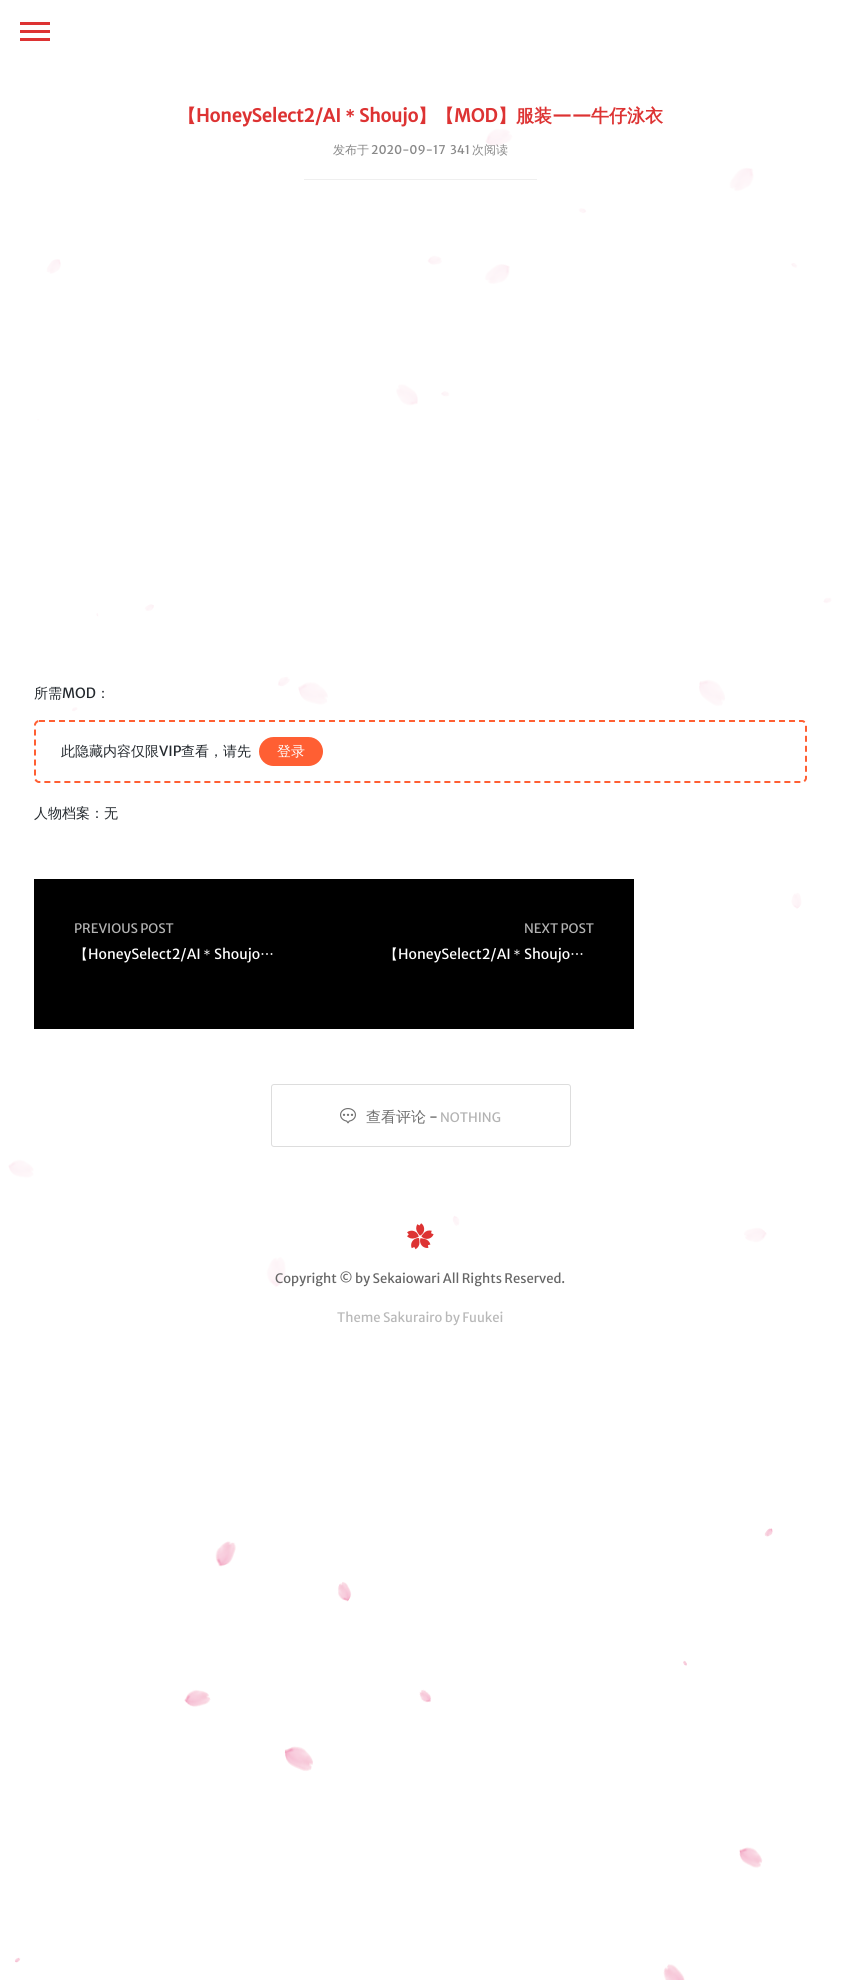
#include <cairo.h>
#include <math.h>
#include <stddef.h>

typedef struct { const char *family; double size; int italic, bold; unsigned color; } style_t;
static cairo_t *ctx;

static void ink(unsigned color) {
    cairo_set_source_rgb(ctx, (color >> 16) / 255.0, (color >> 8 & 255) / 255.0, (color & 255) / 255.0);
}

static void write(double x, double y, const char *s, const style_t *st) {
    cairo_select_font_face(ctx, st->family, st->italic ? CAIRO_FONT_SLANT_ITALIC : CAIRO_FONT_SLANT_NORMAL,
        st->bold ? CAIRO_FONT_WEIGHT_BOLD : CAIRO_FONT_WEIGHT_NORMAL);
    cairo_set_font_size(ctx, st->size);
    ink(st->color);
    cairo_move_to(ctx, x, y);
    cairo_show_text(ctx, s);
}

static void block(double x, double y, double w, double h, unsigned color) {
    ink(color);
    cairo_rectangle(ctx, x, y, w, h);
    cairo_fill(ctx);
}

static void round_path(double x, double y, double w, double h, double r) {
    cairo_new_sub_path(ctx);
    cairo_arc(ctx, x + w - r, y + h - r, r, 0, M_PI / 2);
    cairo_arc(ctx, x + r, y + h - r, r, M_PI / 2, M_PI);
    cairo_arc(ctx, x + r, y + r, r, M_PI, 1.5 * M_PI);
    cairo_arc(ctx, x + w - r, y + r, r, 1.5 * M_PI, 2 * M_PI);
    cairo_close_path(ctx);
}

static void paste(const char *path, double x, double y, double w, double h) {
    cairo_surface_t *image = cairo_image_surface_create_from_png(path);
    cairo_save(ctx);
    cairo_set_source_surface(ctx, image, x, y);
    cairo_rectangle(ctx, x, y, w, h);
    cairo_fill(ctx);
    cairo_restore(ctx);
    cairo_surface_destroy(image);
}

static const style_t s1 = {"WenQuanYi Zen Hei", 18, 0, 1, 0xdd3333};
static const style_t s2 = {"Merriweather Sans", 18, 0, 1, 0xdd3333};
static const style_t s3 = {"WenQuanYi Zen Hei Medium", 12, 0, 0, 0x888888};
static const style_t s4 = {"Merriweather Sans", 12, 0, 0, 0x888888};
static const style_t s5 = {"WenQuanYi Zen Hei Medium", 14, 0, 0, 0x24292e};
static const style_t s6 = {"Merriweather Sans", 14, 0, 0, 0x24292e};
static const style_t s7 = {"WenQuanYi Zen Hei Medium", 14, 0, 0, 0xffffff};
static const style_t s8 = {"Merriweather Sans", 13, 0, 0, 0xb3b3b3};
static const style_t s9 = {"Merriweather Sans", 14, 0, 0, 0xffffff};
static const style_t s10 = {"WenQuanYi Zen Hei Medium", 15, 0, 0, 0x6f6f6f};
static const style_t s11 = {"Merriweather Sans", 15, 0, 0, 0x6f6f6f};
static const style_t s12 = {"Merriweather Sans", 13, 0, 0, 0x666666};
static const style_t s13 = {"Merriweather Sans", 13, 0, 0, 0xb9b9b9};

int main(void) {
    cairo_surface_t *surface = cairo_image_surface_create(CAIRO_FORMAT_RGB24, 841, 1980);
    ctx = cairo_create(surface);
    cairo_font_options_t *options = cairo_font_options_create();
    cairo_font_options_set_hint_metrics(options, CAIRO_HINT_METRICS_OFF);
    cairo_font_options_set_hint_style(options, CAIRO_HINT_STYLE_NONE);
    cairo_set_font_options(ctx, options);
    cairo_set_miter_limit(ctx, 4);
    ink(0xffffff);
    cairo_paint(ctx);
    block(20, 30, 30, 3, 0xdd3333);
    block(20, 22, 30, 3, 0xdd3333);
    block(20, 38, 30, 3, 0xdd3333);
    paste("pic3.png", 8, 128, 824, 1852);
    cairo_set_source_rgba(ctx, 1, 1, 1, 0.8);
    cairo_rectangle(ctx, 8, 128, 824, 1050);
    cairo_fill(ctx);
    write(178, 122, "【", &s1);
    write(196, 122, "HoneySelect2/AI", &s2);
    write(341, 122, "＊", &s1);
    write(359, 122, "Shoujo", &s2);
    write(418, 122, "】【", &s1);
    write(454, 122, "MOD", &s2);
    write(498, 122, "】服装", &s1);
    write(552, 122, "——", &s2);
    write(591, 122, "牛仔泳衣", &s1);
    write(333, 154, "发布于", &s3);
    write(371, 154, "2020-09-17  341", &s4);
    write(472, 154, "次阅读", &s3);
    block(304, 179, 233, 1, 0xefefef);
    write(34, 698, "所需", &s5);
    write(62, 698, "MOD", &s6);
    write(96, 698, "：", &s5);
    cairo_new_path(ctx);
    cairo_move_to(ctx, 39, 721);
    cairo_line_to(ctx, 802, 721);
    cairo_curve_to(ctx, 804, 721, 806, 723, 806, 725);
    cairo_line_to(ctx, 806, 778);
    cairo_curve_to(ctx, 806, 780, 804, 782, 802, 782);
    cairo_line_to(ctx, 39, 782);
    cairo_curve_to(ctx, 37, 782, 35, 780, 35, 778);
    cairo_line_to(ctx, 35, 725);
    cairo_curve_to(ctx, 35, 723, 37, 721, 39, 721);
    cairo_close_path(ctx);
    ink(0xff5f33);
    cairo_set_dash(ctx, (double[]){6, 4}, 2, 0);
    cairo_stroke(ctx);
    write(61, 756, "此隐藏内容仅限", &s5);
    write(159, 756, "VIP", &s6);
    write(181, 756, "查看，请先", &s5);
    ink(0xff5f33);
    round_path(259, 737, 64, 29, 14.5);
    cairo_fill(ctx);
    write(277, 756, "登录", &s7);
    write(34, 818, "人物档案：无", &s5);
    block(34, 879, 600, 150, 0x000000);
    write(74, 933, "PREVIOUS POST", &s8);
    write(74, 959, "【", &s7);
    write(88, 959, "HoneySelect2/AI", &s9);
    write(200, 959, "＊", &s7);
    write(214, 959, "Shoujo", &s9);
    write(260, 959, "…", &s7);
    write(524, 933, "NEXT POST", &s8);
    write(384, 959, "【", &s7);
    write(398, 959, "HoneySelect2/AI", &s9);
    write(510, 959, "＊", &s7);
    write(524, 959, "Shoujo", &s9);
    write(570, 959, "…", &s7);
    round_path(271.5, 1084.5, 299, 62, 2.5);
    ink(0xdddddd);
    cairo_set_line_width(ctx, 1);
    cairo_set_dash(ctx, NULL, 0, 0);
    cairo_stroke(ctx);
    paste("pic1.png", 340, 1108, 16, 16);
    write(366, 1122, "查看评论", &s10);
    write(429, 1122, "-", &s11);
    write(440, 1122, "NOTHING", &s8);
    cairo_set_source_rgba(ctx, 1, 1, 1, 0.8);
    cairo_rectangle(ctx, 266, 1216, 501, 72);
    cairo_fill(ctx);
    paste("pic2.png", 407, 1223, 27, 27);
    write(275, 1283, "Copyright © by Sekaiowari All Rights Reserved.", &s12);
    write(337, 1322, "Theme Sakurairo by Fuukei", &s13);
    cairo_surface_write_to_png(surface, "screenshot.png");
    cairo_font_options_destroy(options);
    cairo_destroy(ctx);
    cairo_surface_destroy(surface);
    return 0;
}
